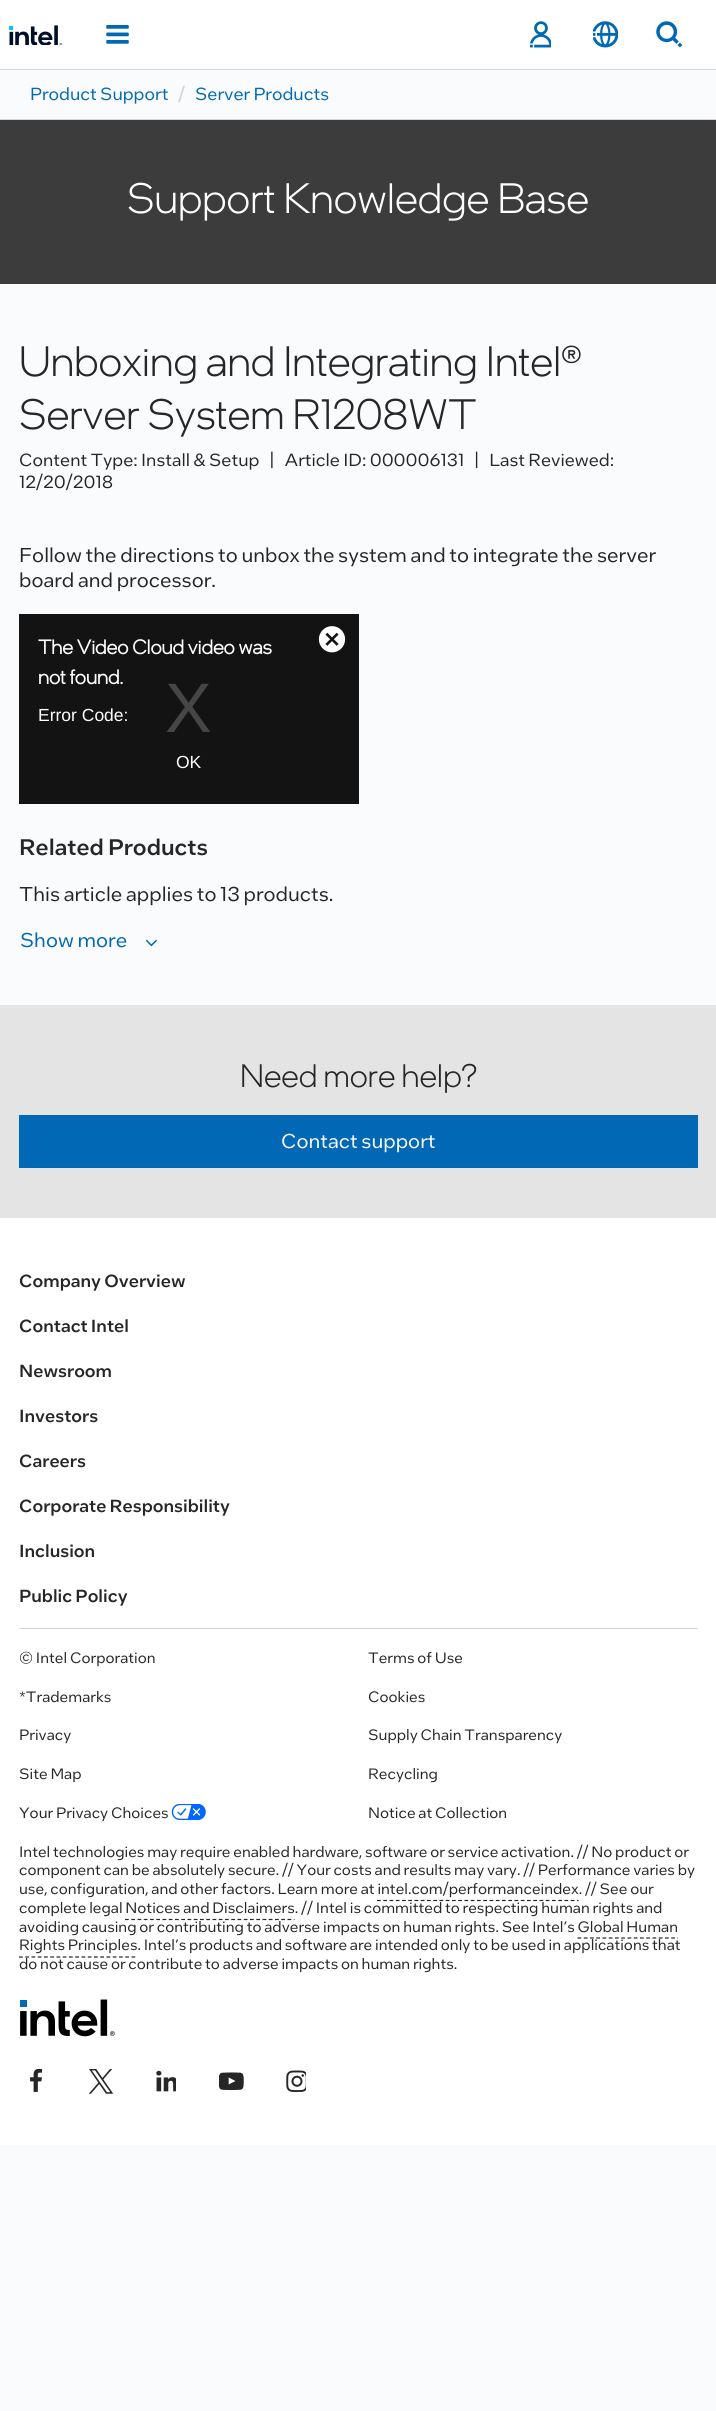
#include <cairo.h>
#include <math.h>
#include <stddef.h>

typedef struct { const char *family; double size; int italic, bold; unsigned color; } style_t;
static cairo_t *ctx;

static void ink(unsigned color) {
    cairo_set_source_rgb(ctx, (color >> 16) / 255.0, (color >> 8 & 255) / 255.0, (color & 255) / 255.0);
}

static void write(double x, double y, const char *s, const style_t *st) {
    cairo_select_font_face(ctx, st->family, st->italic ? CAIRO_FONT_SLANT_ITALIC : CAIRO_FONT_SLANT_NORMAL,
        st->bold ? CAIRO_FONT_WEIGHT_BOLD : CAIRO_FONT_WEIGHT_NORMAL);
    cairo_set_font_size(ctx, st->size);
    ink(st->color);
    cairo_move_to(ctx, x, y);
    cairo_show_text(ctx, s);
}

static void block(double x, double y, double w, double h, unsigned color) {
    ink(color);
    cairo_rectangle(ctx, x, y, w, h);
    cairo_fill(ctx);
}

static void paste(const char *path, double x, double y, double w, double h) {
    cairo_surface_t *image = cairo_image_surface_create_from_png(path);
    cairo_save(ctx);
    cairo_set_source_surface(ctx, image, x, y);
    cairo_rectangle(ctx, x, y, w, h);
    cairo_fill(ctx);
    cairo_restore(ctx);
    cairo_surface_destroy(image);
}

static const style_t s1 = {"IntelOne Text", 17.5, 0, 0, 0x0068b5};
static const style_t s2 = {"IntelOne Text Medium", 17.5, 0, 0, 0xd7d7d7};
static const style_t s3 = {"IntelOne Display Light", 42.5, 0, 0, 0xffffff};
static const style_t s4 = {"IntelOne Display Light", 42.5, 0, 0, 0x262626};
static const style_t s5 = {"IntelOne Text", 17.5, 0, 0, 0x262626};
static const style_t s6 = {"IntelOne Text", 20, 0, 0, 0x262626};
static const style_t s7 = {"IntelOne Display", 20, 0, 1, 0xffffff};
static const style_t s8 = {"Liberation Sans", 17.5, 0, 0, 0xffffff};
static const style_t s9 = {"Liberation Sans", 70, 0, 0, 0x464646};
static const style_t s10 = {"IntelOne Text Medium", 22.5, 0, 0, 0x262626};
static const style_t s11 = {"IntelOne Text", 20, 0, 0, 0x0068b5};
static const style_t s12 = {"IntelOne Display Light", 32.5, 0, 0, 0x262626};
static const style_t s13 = {"IntelOne Text", 20, 0, 0, 0xffffff};
static const style_t s14 = {"IntelOne Text Medium", 17.5, 0, 0, 0x262626};
static const style_t s15 = {"IntelOne Text", 15, 0, 0, 0x262626};

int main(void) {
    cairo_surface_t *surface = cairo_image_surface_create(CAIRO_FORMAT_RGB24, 716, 2411);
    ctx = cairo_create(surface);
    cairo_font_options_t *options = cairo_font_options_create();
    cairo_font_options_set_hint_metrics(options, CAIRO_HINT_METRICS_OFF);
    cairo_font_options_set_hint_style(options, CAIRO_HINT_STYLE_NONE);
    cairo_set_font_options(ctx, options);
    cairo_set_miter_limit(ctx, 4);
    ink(0xfafbfc);
    cairo_paint(ctx);
    block(0, 0, 716, 69, 0xffffff);
    paste("pic1.png", 9, 25, 54, 20);
    paste("pic2.png", 106, 25, 23, 19);
    paste("pic3.png", 530, 21, 21, 27);
    paste("pic4.png", 593, 21, 25, 27);
    paste("pic5.png", 656, 21, 27, 27);
    block(0, 69, 716, 1, 0xd7d7d7);
    block(0, 119, 716, 1, 0xd7d7d7);
    write(30, 100, "Product Support", &s1);
    write(178, 100, "/", &s2);
    write(195, 100, "Server Products", &s1);
    block(0, 120, 716, 164, 0x3c3c3c);
    write(127, 213, "Support Knowledge Base", &s3);
    write(19, 376, "Unboxing and Integrating Intel®", &s4);
    write(19, 429, "Server System R1208WT", &s4);
    write(19, 466, "Content Type: Install & Setup   |   Article ID: 000006131   |   Last Reviewed:", &s5);
    write(19, 488, "12/20/2018", &s5);
    write(19, 562, "Follow the directions to unbox the system and to integrate the server", &s6);
    write(19, 587, "board and processor.", &s6);
    block(19, 614, 340, 190, 0x131313);
    write(38, 654, "The Video Cloud video was", &s7);
    write(38, 684, "not found.", &s7);
    write(38, 721, "Error Code:", &s8);
    paste("pic6.png", 318, 626, 28, 27);
    write(176, 768, "OK", &s8);
    write(165, 732, "X", &s9);
    write(19, 855, "Related Products", &s10);
    write(19, 901, "This article applies to 13 products.", &s6);
    write(20, 947, "Show more", &s11);
    paste("pic7.png", 145, 939, 12, 8);
    block(0, 1005, 716, 213, 0xe4e4e4);
    write(240, 1087, "Need more help?", &s12);
    block(19, 1115, 679, 53, 0x0068b5);
    write(281, 1148, "Contact support", &s13);
    block(0, 1218, 716, 927, 0xffffff);
    write(19, 1287, "Company Overview", &s14);
    write(19, 1332, "Contact Intel", &s14);
    write(19, 1377, "Newsroom", &s14);
    write(19, 1422, "Investors", &s14);
    write(19, 1467, "Careers", &s14);
    write(19, 1512, "Corporate Responsibility", &s14);
    write(19, 1557, "Inclusion", &s14);
    write(19, 1602, "Public Policy", &s14);
    block(19, 1628, 679, 1, 0xd7d7d7);
    write(19, 1663, "© Intel Corporation", &s15);
    write(368, 1663, "Terms of Use", &s15);
    write(19, 1702, "*Trademarks", &s15);
    write(368, 1702, "Cookies", &s15);
    write(19, 1740, "Privacy", &s15);
    write(368, 1740, "Supply Chain Transparency", &s15);
    write(19, 1779, "Site Map", &s15);
    write(368, 1779, "Recycling", &s15);
    write(19, 1818, "Your Privacy Choices", &s15);
    paste("pic8.png", 171, 1804, 35, 16);
    write(368, 1818, "Notice at Collection", &s15);
    write(19, 1857, "Intel technologies may require enabled hardware, software or service activation. // No product or", &s15);
    write(19, 1875, "component can be absolutely secure. // Your costs and results may vary. // Performance varies by", &s15);
    write(19, 1894, "use, configuration, and other factors. Learn more at intel.com/performanceindex. // See our", &s15);
    cairo_new_path(ctx);
    cairo_move_to(ctx, 377, 1900.5);
    cairo_line_to(ctx, 578.5, 1900.5);
    cairo_set_line_width(ctx, 1.2);
    cairo_set_dash(ctx, (double[]){3.75, 2.5}, 2, 0);
    cairo_stroke(ctx);
    write(19, 1913, "complete legal Notices and Disclaimers. // Intel is committed to respecting human rights and", &s15);
    cairo_new_path(ctx);
    cairo_move_to(ctx, 125, 1919.5);
    cairo_line_to(ctx, 294.5, 1919.5);
    cairo_stroke(ctx);
    write(19, 1932, "avoiding causing or contributing to adverse impacts on human rights. See Intel’s Global Human", &s15);
    write(19, 1950, "Rights Principles. Intel’s products and software are intended only to be used in applications that", &s15);
    cairo_new_path(ctx);
    cairo_move_to(ctx, 577.5, 1938);
    cairo_line_to(ctx, 678, 1938);
    cairo_stroke(ctx);
    cairo_new_path(ctx);
    cairo_move_to(ctx, 19, 1957);
    cairo_line_to(ctx, 137, 1957);
    cairo_stroke(ctx);
    write(19, 1969, "do not cause or contribute to adverse impacts on human rights.", &s15);
    paste("pic9.png", 20, 1999, 95, 38);
    paste("pic10.png", 30, 2069, 13, 23);
    paste("pic11.png", 89, 2069, 25, 25);
    paste("pic12.png", 156, 2070, 20, 22);
    paste("pic13.png", 219, 2072, 25, 19);
    paste("pic14.png", 286, 2070, 20, 22);
    cairo_surface_write_to_png(surface, "screenshot.png");
    cairo_font_options_destroy(options);
    cairo_destroy(ctx);
    cairo_surface_destroy(surface);
    return 0;
}
